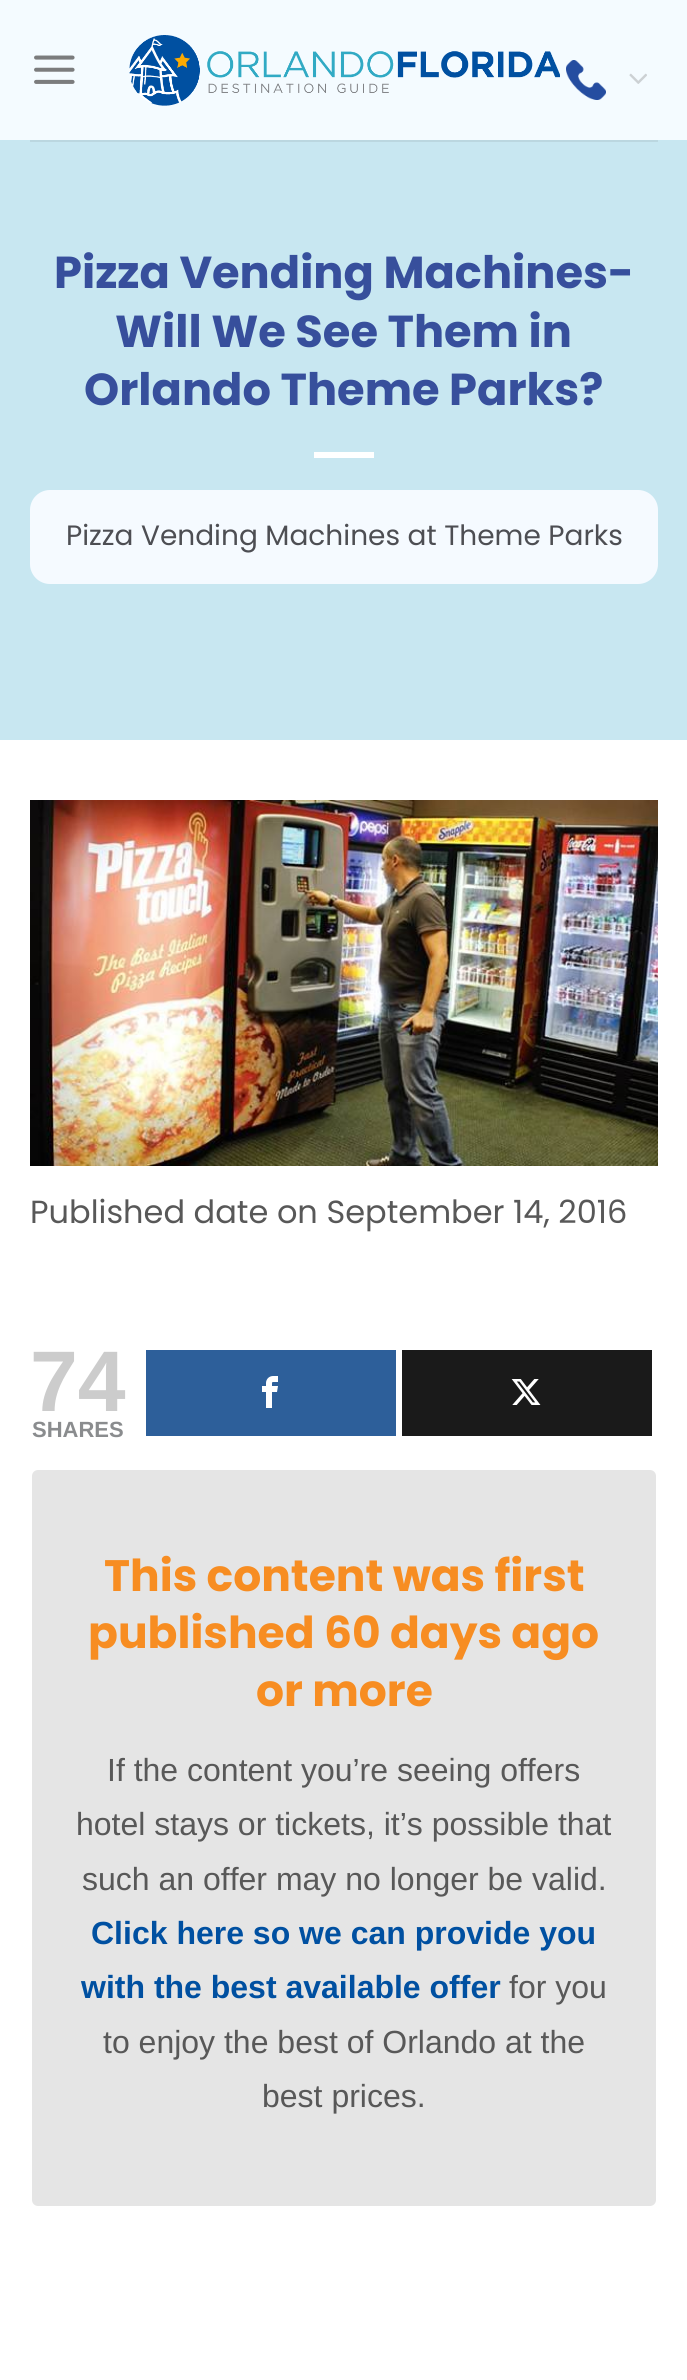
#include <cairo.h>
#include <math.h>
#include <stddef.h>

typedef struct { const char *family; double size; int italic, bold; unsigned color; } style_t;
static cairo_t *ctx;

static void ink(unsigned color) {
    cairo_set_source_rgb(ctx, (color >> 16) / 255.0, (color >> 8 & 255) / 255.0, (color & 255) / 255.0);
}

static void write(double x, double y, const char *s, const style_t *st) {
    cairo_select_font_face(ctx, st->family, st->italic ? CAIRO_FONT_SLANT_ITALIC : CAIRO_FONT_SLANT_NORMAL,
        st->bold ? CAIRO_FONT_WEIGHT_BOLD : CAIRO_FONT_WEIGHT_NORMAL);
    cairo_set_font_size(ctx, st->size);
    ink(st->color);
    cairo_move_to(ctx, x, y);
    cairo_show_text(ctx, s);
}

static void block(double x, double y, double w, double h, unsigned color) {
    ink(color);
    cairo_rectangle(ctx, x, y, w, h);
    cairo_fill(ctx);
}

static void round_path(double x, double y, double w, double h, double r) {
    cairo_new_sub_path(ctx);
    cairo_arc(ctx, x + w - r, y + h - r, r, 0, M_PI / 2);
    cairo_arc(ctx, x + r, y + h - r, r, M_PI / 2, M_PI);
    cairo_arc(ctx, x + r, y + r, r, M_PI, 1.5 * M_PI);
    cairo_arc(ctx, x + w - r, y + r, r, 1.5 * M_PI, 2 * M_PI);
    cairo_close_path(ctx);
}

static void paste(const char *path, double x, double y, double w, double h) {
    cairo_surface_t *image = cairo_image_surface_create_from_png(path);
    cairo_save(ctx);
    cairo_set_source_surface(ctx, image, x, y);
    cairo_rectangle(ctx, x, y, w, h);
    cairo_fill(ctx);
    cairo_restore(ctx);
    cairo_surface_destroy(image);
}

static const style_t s1 = {"Poppins", 44.75, 0, 1, 0x374f9c};
static const style_t s2 = {"Poppins", 28, 0, 0, 0x4d4e53};
static const style_t s3 = {"Poppins", 32, 0, 0, 0x585858};
static const style_t s4 = {"Liberation Sans", 86, 0, 1, 0xcccccc};
static const style_t s5 = {"Liberation Sans", 22, 0, 1, 0x8a8c8e};
static const style_t s6 = {"Poppins", 44, 0, 1, 0xf78d22};
static const style_t s7 = {"Liberation Sans", 32, 0, 0, 0x585858};
static const style_t s8 = {"Liberation Sans", 32, 0, 1, 0x0050a1};

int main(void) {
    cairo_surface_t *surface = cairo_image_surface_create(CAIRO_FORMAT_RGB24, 687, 2380);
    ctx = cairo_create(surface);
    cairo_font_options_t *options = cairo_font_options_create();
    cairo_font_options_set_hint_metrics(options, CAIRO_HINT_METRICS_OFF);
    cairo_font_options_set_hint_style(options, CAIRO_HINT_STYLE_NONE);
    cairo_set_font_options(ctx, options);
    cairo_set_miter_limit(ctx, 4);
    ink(0xffffff);
    cairo_paint(ctx);
    block(0, 0, 687, 140, 0xf4fbff);
    paste("pic1.png", 34, 55, 41, 29);
    paste("pic2.png", 129, 35, 431, 71);
    paste("pic3.png", 566, 60, 40, 40);
    paste("pic4.png", 629, 73, 18, 11);
    block(0, 140, 687, 600, 0xc8e7f1);
    block(30, 140, 628, 2, 0xbbd7e0);
    write(54, 288, "Pizza Vending Machines-", &s1);
    write(115, 347, "Will We See Them in", &s1);
    write(84, 405, "Orlando Theme Parks?", &s1);
    block(314, 452, 60, 6, 0xffffff);
    ink(0xf5faff);
    round_path(30, 490, 628, 94, 20);
    cairo_fill(ctx);
    write(66, 545, "Pizza Vending Machines at Theme Parks", &s2);
    paste("pic5.png", 30, 800, 628, 366);
    write(30, 1223, "Published date on September 14, 2016", &s3);
    write(30, 1411, "74", &s4);
    write(32, 1437, "SHARES", &s5);
    block(146, 1350, 250, 86, 0x2d5f9a);
    paste("pic6.png", 262, 1376, 16, 32);
    block(402, 1350, 250, 86, 0x1a1a1a);
    paste("pic7.png", 511, 1379, 30, 26);
    ink(0xe5e5e5);
    round_path(32, 1470, 624, 736, 6);
    cairo_fill(ctx);
    write(104, 1591, "This content was first", &s6);
    write(88, 1648, "published 60 days ago", &s6);
    write(256, 1706, "or more", &s6);
    write(107, 1781, "If the content you’re seeing offers", &s7);
    write(76, 1835, "hotel stays or tickets, it’s possible that", &s7);
    write(82, 1890, "such an offer may no longer be valid.", &s7);
    write(91, 1944, "Click here so we can provide you", &s8);
    write(81, 1998, "with the best available offer", &s8);
    write(509, 1998, "for you", &s7);
    write(103, 2053, "to enjoy the best of Orlando at the", &s7);
    write(262, 2107, "best prices.", &s7);
    cairo_surface_write_to_png(surface, "screenshot.png");
    cairo_font_options_destroy(options);
    cairo_destroy(ctx);
    cairo_surface_destroy(surface);
    return 0;
}
